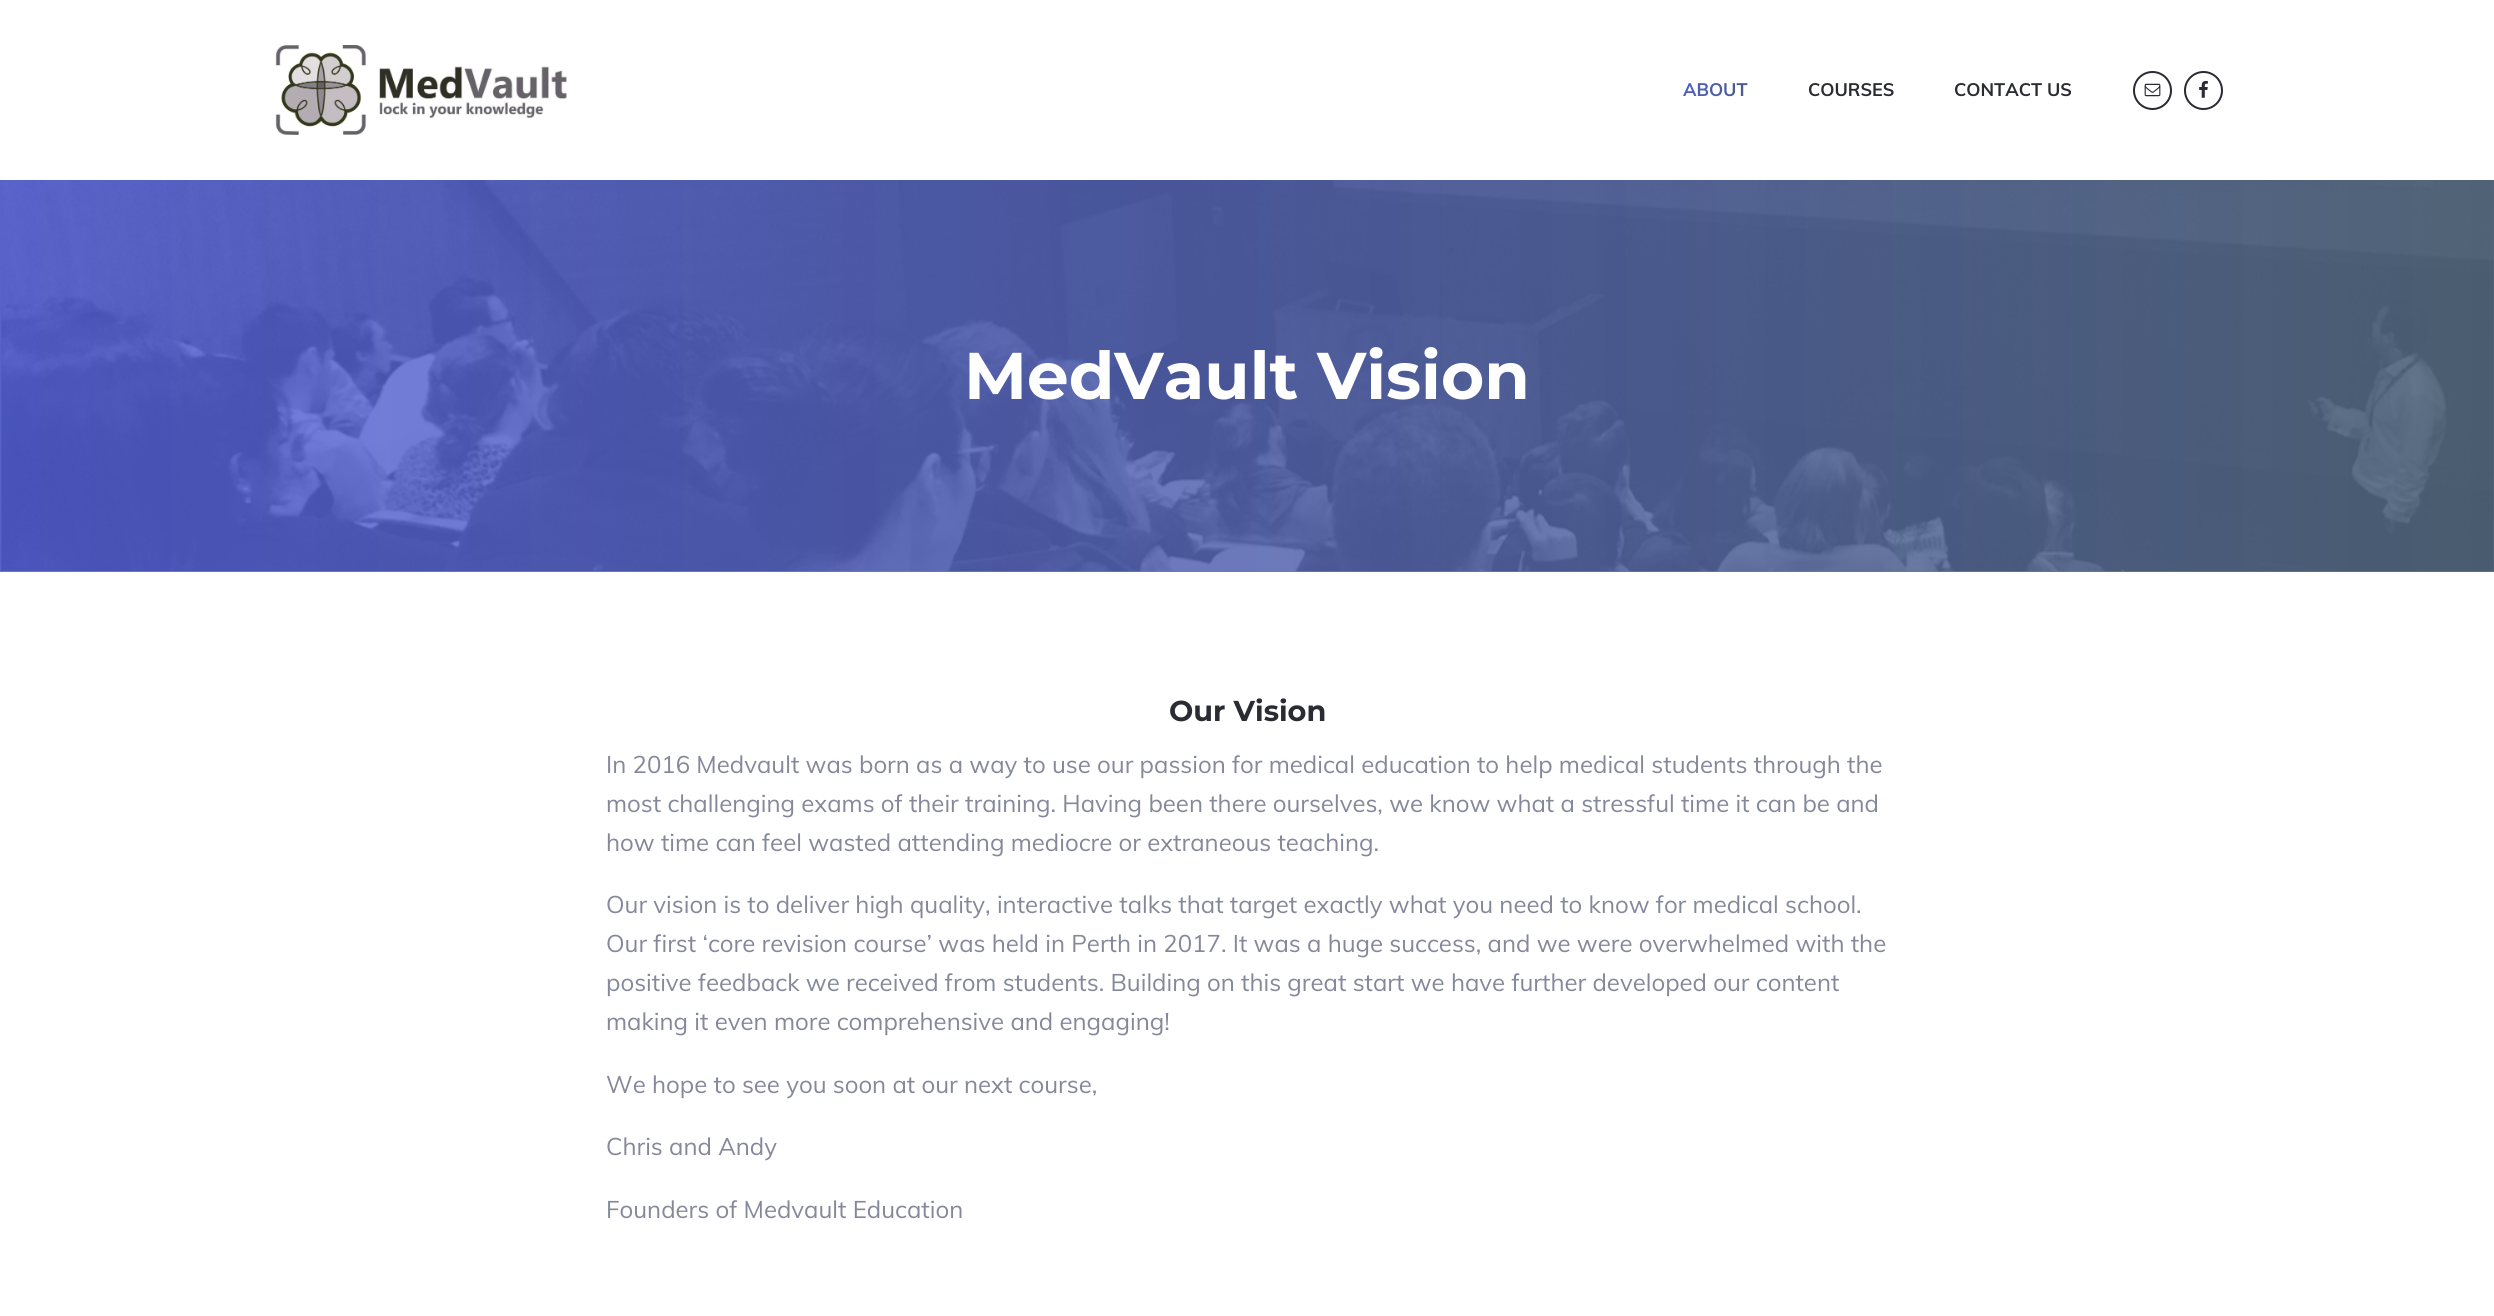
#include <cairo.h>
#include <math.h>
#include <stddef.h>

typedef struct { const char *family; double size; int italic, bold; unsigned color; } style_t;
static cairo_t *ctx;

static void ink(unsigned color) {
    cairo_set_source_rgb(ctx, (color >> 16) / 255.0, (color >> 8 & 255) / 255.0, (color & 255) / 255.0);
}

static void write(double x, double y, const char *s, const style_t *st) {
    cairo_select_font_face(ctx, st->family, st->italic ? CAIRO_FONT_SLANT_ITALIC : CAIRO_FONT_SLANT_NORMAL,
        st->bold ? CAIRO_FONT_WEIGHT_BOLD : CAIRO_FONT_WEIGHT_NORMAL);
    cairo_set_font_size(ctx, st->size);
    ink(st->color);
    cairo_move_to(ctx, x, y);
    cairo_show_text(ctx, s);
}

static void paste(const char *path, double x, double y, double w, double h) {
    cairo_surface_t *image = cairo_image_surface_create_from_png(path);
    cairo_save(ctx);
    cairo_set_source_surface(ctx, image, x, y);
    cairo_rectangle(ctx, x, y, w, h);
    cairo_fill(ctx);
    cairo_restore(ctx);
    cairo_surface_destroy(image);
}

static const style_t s1 = {"Muli", 18, 0, 1, 0x2a2b33};
static const style_t s2 = {"Montserrat Thin", 66, 0, 0, 0xffffff};
static const style_t s3 = {"Montserrat Thin", 28.75, 0, 0, 0x2a2b33};
static const style_t s4 = {"Muli", 24, 0, 0, 0x85889b};

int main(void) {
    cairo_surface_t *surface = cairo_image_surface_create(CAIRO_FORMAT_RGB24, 2494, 1316);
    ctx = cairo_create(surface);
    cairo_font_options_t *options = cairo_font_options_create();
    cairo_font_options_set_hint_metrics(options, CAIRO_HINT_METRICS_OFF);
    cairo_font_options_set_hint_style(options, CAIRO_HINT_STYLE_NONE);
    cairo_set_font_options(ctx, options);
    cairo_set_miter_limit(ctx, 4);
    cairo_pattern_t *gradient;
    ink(0xffffff);
    cairo_paint(ctx);
    paste("pic1.png", 275, 45, 292, 90);
    cairo_select_font_face(ctx, "Muli", CAIRO_FONT_SLANT_NORMAL, CAIRO_FONT_WEIGHT_BOLD);
    cairo_set_font_size(ctx, 18);
    gradient = cairo_pattern_create_linear(1653, 90, 1778, 90);
    cairo_pattern_add_color_stop_rgba(gradient, 0, 0.329, 0.376, 0.871, 1);
    cairo_pattern_add_color_stop_rgba(gradient, 1, 0.263, 0.353, 0.439, 1);
    cairo_set_source(ctx, gradient);
    cairo_pattern_destroy(gradient);
    cairo_move_to(ctx, 1683, 96);
    cairo_show_text(ctx, "ABOUT");
    write(1808, 96, "COURSES", &s1);
    write(1954, 96, "CONTACT US", &s1);
    cairo_new_path(ctx);
    cairo_arc(ctx, 2152.5, 90.5, 18.5, 0, 2 * M_PI);
    cairo_stroke(ctx);
    paste("pic2.png", 2144, 83, 17, 14);
    cairo_arc(ctx, 2203.5, 90.5, 18.5, 0, 2 * M_PI);
    cairo_stroke(ctx);
    paste("pic3.png", 2199, 81, 9, 17);
    paste("pic4.png", 0, 180, 2494, 392);
    gradient = cairo_pattern_create_linear(0, 376, 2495, 376);
    cairo_pattern_add_color_stop_rgba(gradient, 0, 0.173, 0.231, 0.839, 0.66);
    cairo_pattern_add_color_stop_rgba(gradient, 1, 0.231, 0.325, 0.416, 0.79);
    cairo_set_source(ctx, gradient);
    cairo_pattern_destroy(gradient);
    cairo_rectangle(ctx, 0, 180, 2494, 392);
    cairo_fill(ctx);
    write(964, 399, "MedVault Vision", &s2);
    write(1169, 721, "Our Vision", &s3);
    write(606, 773, "In 2016 Medvault was born as a way to use our passion for medical education to help medical students through the", &s4);
    write(606, 812, "most challenging exams of their training. Having been there ourselves, we know what a stressful time it can be and", &s4);
    write(606, 851, "how time can feel wasted attending mediocre or extraneous teaching.", &s4);
    write(606, 913, "Our vision is to deliver high quality, interactive talks that target exactly what you need to know for medical school.", &s4);
    write(606, 952, "Our first ‘core revision course’ was held in Perth in 2017. It was a huge success, and we were overwhelmed with the", &s4);
    write(606, 991, "positive feedback we received from students. Building on this great start we have further developed our content", &s4);
    write(606, 1030, "making it even more comprehensive and engaging!", &s4);
    write(606, 1093, "We hope to see you soon at our next course,", &s4);
    write(606, 1155, "Chris and Andy", &s4);
    write(606, 1218, "Founders of Medvault Education", &s4);
    cairo_surface_write_to_png(surface, "screenshot.png");
    cairo_font_options_destroy(options);
    cairo_destroy(ctx);
    cairo_surface_destroy(surface);
    return 0;
}
